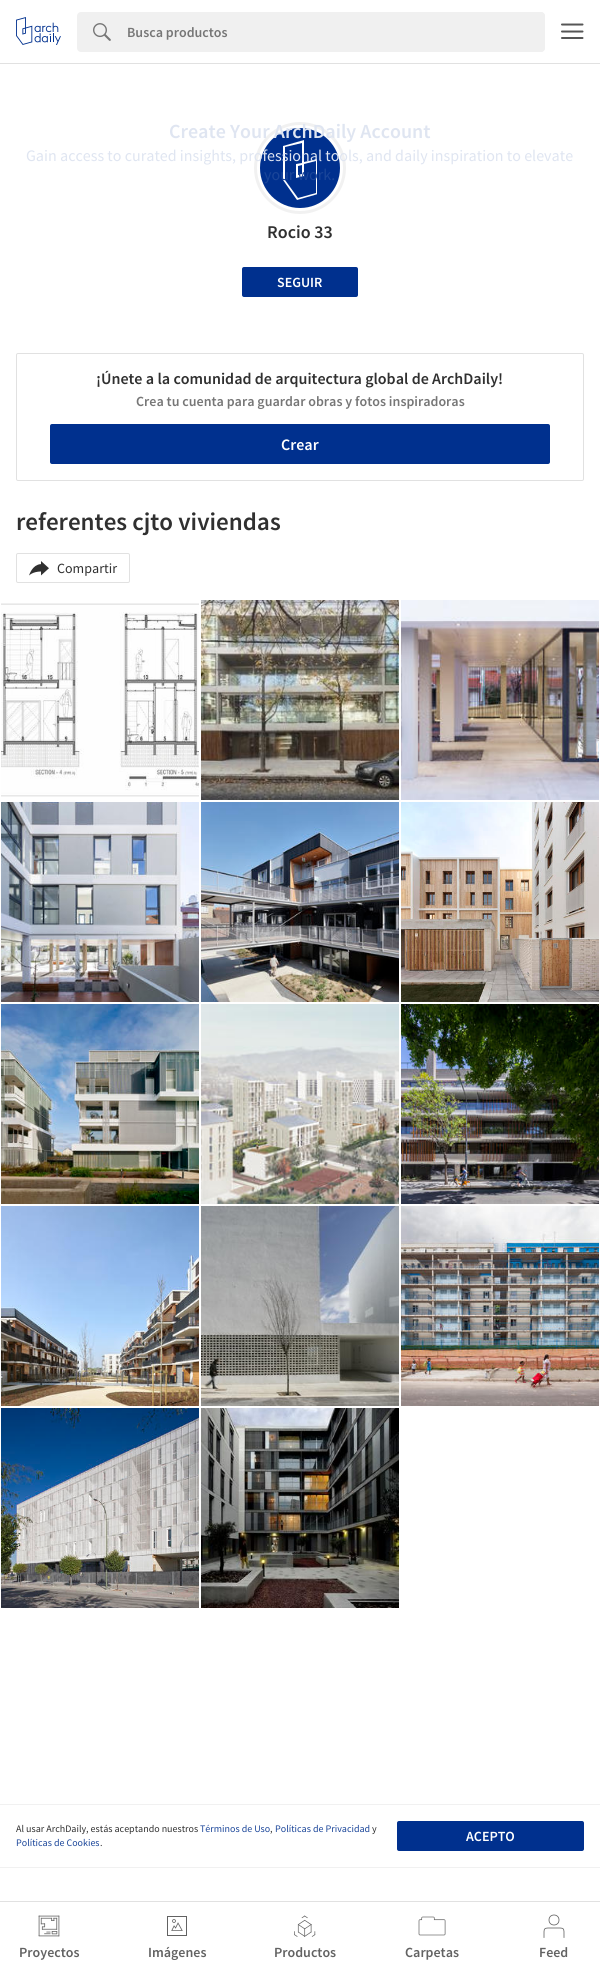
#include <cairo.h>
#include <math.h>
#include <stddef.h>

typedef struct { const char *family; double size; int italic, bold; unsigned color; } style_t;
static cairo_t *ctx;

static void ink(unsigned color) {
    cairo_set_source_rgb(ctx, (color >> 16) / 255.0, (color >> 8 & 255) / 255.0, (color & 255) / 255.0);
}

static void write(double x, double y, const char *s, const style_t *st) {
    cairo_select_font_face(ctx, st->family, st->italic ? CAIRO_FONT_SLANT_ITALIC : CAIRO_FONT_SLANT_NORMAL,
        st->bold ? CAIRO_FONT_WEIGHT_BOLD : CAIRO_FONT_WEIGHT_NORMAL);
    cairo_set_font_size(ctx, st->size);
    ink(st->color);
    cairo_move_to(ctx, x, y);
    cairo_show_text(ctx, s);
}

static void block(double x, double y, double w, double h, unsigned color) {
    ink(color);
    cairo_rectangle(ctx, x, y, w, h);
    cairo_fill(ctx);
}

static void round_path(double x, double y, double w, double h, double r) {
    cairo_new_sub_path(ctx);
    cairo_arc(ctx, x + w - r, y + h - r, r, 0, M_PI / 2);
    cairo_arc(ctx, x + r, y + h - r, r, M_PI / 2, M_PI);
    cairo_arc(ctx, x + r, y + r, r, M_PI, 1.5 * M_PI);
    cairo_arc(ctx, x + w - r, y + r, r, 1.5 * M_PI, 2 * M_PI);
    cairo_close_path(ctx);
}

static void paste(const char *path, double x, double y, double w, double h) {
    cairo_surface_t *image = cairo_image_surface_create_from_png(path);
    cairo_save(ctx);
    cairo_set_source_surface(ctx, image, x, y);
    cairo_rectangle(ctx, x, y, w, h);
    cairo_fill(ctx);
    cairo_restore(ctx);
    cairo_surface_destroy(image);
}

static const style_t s1 = {"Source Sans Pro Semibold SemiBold", 14, 0, 0, 0x767676};
static const style_t s2 = {"Source Sans Pro Semibold SemiBold", 20, 0, 0, 0xdfe5f1};
static const style_t s3 = {"Source Sans Pro", 16, 0, 0, 0xdfe5f1};
static const style_t s4 = {"Source Sans Pro", 16, 0, 0, 0x1a4599};
static const style_t s5 = {"Source Sans Pro Semibold SemiBold", 18, 0, 0, 0x303030};
static const style_t s6 = {"Source Sans Pro Semibold SemiBold", 14, 0, 0, 0xffffff};
static const style_t s7 = {"Source Sans Pro Semibold SemiBold", 16, 0, 0, 0x303030};
static const style_t s8 = {"Source Sans Pro Semibold SemiBold", 16, 0, 0, 0xffffff};
static const style_t s9 = {"Source Sans Pro Semibold SemiBold", 25, 0, 0, 0x303030};
static const style_t s10 = {"Source Sans Pro", 14, 0, 0, 0x303030};
static const style_t s11 = {"Source Sans Pro", 10, 0, 0, 0x303030};
static const style_t s12 = {"Source Sans Pro", 10, 0, 0, 0x1a4599};
static const style_t s13 = {"Source Sans Pro Semibold SemiBold", 14, 0, 0, 0x626262};

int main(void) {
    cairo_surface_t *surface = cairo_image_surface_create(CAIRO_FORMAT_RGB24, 600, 1976);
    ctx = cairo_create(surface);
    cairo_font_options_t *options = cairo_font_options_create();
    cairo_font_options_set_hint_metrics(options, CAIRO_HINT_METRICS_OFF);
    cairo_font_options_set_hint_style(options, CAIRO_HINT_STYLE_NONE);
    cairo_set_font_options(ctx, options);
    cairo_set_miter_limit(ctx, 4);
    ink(0xffffff);
    cairo_paint(ctx);
    block(0, 63, 600, 1, 0xe1e1e1);
    paste("pic1.png", 16, 17, 45, 28);
    ink(0xf0f0f0);
    round_path(77, 12, 468, 40, 4);
    cairo_fill(ctx);
    paste("pic2.png", 93, 23, 18, 18);
    cairo_new_path(ctx);
    cairo_move_to(ctx, 127, 12);
    cairo_line_to(ctx, 541, 12);
    cairo_curve_to(ctx, 543, 12, 545, 14, 545, 16);
    cairo_line_to(ctx, 545, 48);
    cairo_curve_to(ctx, 545, 50, 543, 52, 541, 52);
    cairo_line_to(ctx, 127, 52);
    cairo_close_path(ctx);
    cairo_fill(ctx);
    write(127, 37, "Busca productos", &s1);
    cairo_new_path(ctx);
    cairo_move_to(ctx, 562, 24.5);
    cairo_line_to(ctx, 582.5, 24.5);
    cairo_move_to(ctx, 562, 31.5);
    cairo_line_to(ctx, 582.5, 31.5);
    cairo_move_to(ctx, 562, 38);
    cairo_line_to(ctx, 582.5, 38);
    ink(0x565656);
    cairo_set_line_cap(ctx, CAIRO_LINE_CAP_ROUND);
    cairo_stroke(ctx);
    cairo_arc(ctx, 300, 168, 43, 0, 2 * M_PI);
    ink(0xf1f1f1);
    cairo_set_line_width(ctx, 6);
    cairo_set_line_cap(ctx, CAIRO_LINE_CAP_BUTT);
    cairo_stroke(ctx);
    cairo_arc(ctx, 300, 168, 41.5, 0, 2 * M_PI);
    ink(0xffffff);
    cairo_set_line_width(ctx, 3);
    cairo_stroke(ctx);
    ink(0x00308e);
    cairo_arc(ctx, 300, 168, 40, 0, 2 * M_PI);
    cairo_fill(ctx);
    cairo_save(ctx);
    cairo_rectangle(ctx, 283, 140, 34, 60);
    cairo_clip(ctx);
    ink(0xffffff);
    cairo_new_path(ctx);
    cairo_move_to(ctx, 297, 200);
    cairo_line_to(ctx, 283, 180);
    cairo_line_to(ctx, 283, 146);
    cairo_line_to(ctx, 304, 140);
    cairo_line_to(ctx, 304, 162);
    cairo_line_to(ctx, 318, 159);
    cairo_line_to(ctx, 318, 194);
    cairo_close_path(ctx);
    cairo_move_to(ctx, 285, 180);
    cairo_line_to(ctx, 298, 198);
    cairo_line_to(ctx, 316, 193);
    cairo_line_to(ctx, 316, 161);
    cairo_line_to(ctx, 304, 164);
    cairo_line_to(ctx, 304, 176);
    cairo_line_to(ctx, 296, 178);
    cairo_line_to(ctx, 296, 164);
    cairo_line_to(ctx, 302, 163);
    cairo_line_to(ctx, 302, 143);
    cairo_line_to(ctx, 285, 147);
    cairo_close_path(ctx);
    cairo_move_to(ctx, 298, 166);
    cairo_line_to(ctx, 298, 175);
    cairo_line_to(ctx, 302, 174);
    cairo_line_to(ctx, 302, 165);
    cairo_close_path(ctx);
    cairo_fill(ctx);
    cairo_restore(ctx);
    write(169, 138, "Create Your ArchDaily Account", &s2);
    write(26, 161, "Gain access to curated insights, professional tools, and daily inspiration to elevate", &s3);
    write(264, 180, "your work.", &s4);
    write(267, 238, "Rocio 33", &s5);
    ink(0x00308e);
    round_path(242, 267, 116, 30, 2);
    cairo_fill(ctx);
    write(277, 287, "SEGUIR", &s6);
    round_path(16.5, 353.5, 567, 127, 1.5);
    ink(0xe1e1e1);
    cairo_set_line_width(ctx, 1);
    cairo_stroke(ctx);
    write(96, 384, "¡Únete a la comunidad de arquitectura global de ArchDaily!", &s7);
    write(136, 406, "Crea tu cuenta para guardar obras y fotos inspiradoras", &s1);
    ink(0x00308e);
    round_path(50, 424, 500, 40, 2);
    cairo_fill(ctx);
    write(281, 450, "Crear", &s8);
    write(16, 530, "referentes cjto viviendas", &s9);
    round_path(16.5, 553.5, 113, 29, 1.5);
    ink(0xe1e1e1);
    cairo_stroke(ctx);
    paste("pic3.png", 29, 561, 20, 15);
    write(57, 573, "Compartir", &s10);
    paste("pic4.png", 1, 603, 198, 194);
    paste("pic5.png", 201, 600, 198, 200);
    paste("pic6.png", 401, 600, 198, 200);
    paste("pic7.png", 1, 802, 198, 200);
    paste("pic8.png", 201, 802, 198, 200);
    paste("pic9.png", 401, 802, 198, 200);
    paste("pic10.png", 1, 1004, 198, 200);
    paste("pic11.png", 201, 1004, 198, 200);
    paste("pic12.png", 401, 1004, 198, 200);
    paste("pic13.png", 1, 1206, 198, 200);
    paste("pic14.png", 201, 1206, 198, 200);
    paste("pic15.png", 401, 1206, 198, 200);
    paste("pic16.png", 1, 1408, 198, 200);
    paste("pic17.png", 201, 1408, 198, 200);
    block(0, 1901, 600, 1, 0xe1e1e1);
    block(0, 1804, 600, 1, 0xf1f1f1);
    block(0, 1867, 600, 1, 0xf1f1f1);
    write(16, 1832, "Al usar ArchDaily, estás aceptando nuestros", &s11);
    write(200, 1832, "Términos de Uso", &s12);
    write(270, 1832, ",", &s11);
    write(275, 1832, "Políticas de Privacidad", &s12);
    write(372, 1832, "y", &s11);
    write(16, 1846, "Políticas de Cookies", &s12);
    write(100, 1846, ".", &s11);
    ink(0x00308e);
    round_path(397, 1821, 187, 30, 2);
    cairo_fill(ctx);
    write(466, 1841, "ACEPTO", &s6);
    paste("pic18.png", 38, 1915, 22, 22);
    write(19, 1957, "Proyectos", &s13);
    paste("pic19.png", 167, 1916, 20, 20);
    write(148, 1957, "Imágenes", &s13);
    paste("pic20.png", 294, 1915, 22, 22);
    write(274, 1957, "Productos", &s13);
    paste("pic21.png", 418, 1916, 28, 20);
    write(405, 1957, "Carpetas", &s13);
    cairo_new_path(ctx);
    cairo_arc(ctx, 554, 1920, 5, 0, 2 * M_PI);
    cairo_set_line_width(ctx, 0.8);
    cairo_stroke(ctx);
    cairo_new_path(ctx);
    cairo_move_to(ctx, 564, 1937.5);
    cairo_curve_to(ctx, 564, 1927, 565, 1928, 554, 1928);
    cairo_curve_to(ctx, 543, 1928, 544, 1927, 544, 1937.5);
    cairo_set_line_cap(ctx, CAIRO_LINE_CAP_SQUARE);
    cairo_stroke(ctx);
    write(539, 1957, "Feed", &s13);
    cairo_surface_write_to_png(surface, "screenshot.png");
    cairo_font_options_destroy(options);
    cairo_destroy(ctx);
    cairo_surface_destroy(surface);
    return 0;
}
